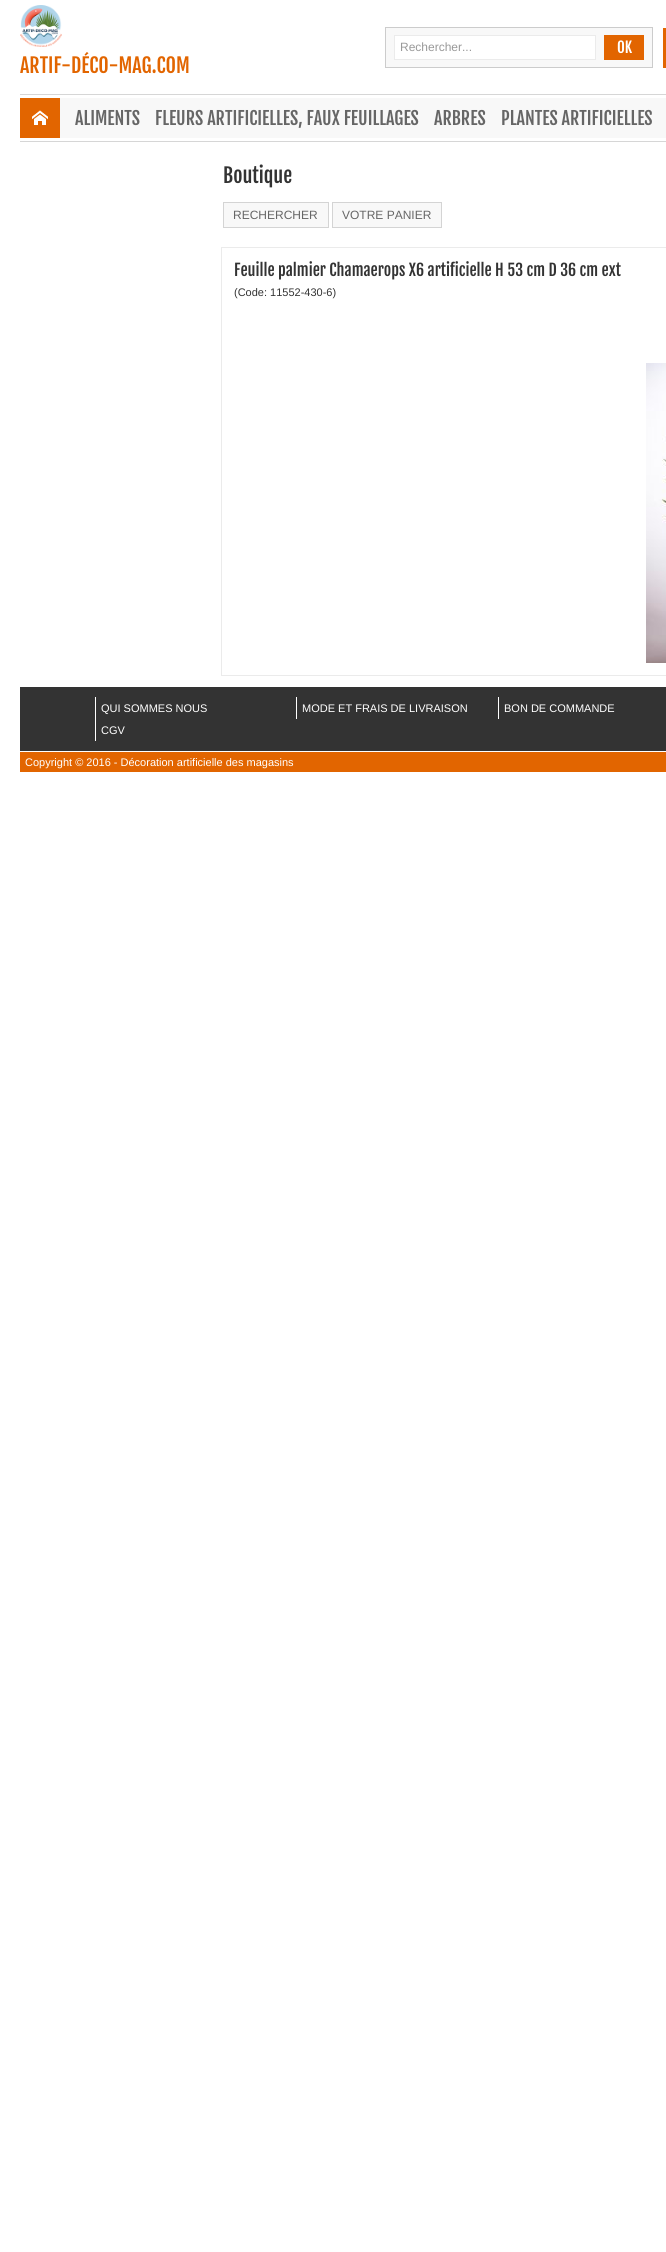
#include <cairo.h>
#include <math.h>
#include <stddef.h>

typedef struct { const char *family; double size; int italic, bold; unsigned color; } style_t;
static cairo_t *ctx;

static void ink(unsigned color) {
    cairo_set_source_rgb(ctx, (color >> 16) / 255.0, (color >> 8 & 255) / 255.0, (color & 255) / 255.0);
}

static void write(double x, double y, const char *s, const style_t *st) {
    cairo_select_font_face(ctx, st->family, st->italic ? CAIRO_FONT_SLANT_ITALIC : CAIRO_FONT_SLANT_NORMAL,
        st->bold ? CAIRO_FONT_WEIGHT_BOLD : CAIRO_FONT_WEIGHT_NORMAL);
    cairo_set_font_size(ctx, st->size);
    ink(st->color);
    cairo_move_to(ctx, x, y);
    cairo_show_text(ctx, s);
}

static void block(double x, double y, double w, double h, unsigned color) {
    ink(color);
    cairo_rectangle(ctx, x, y, w, h);
    cairo_fill(ctx);
}

static void paste(const char *path, double x, double y, double w, double h) {
    cairo_surface_t *image = cairo_image_surface_create_from_png(path);
    cairo_save(ctx);
    cairo_set_source_surface(ctx, image, x, y);
    cairo_rectangle(ctx, x, y, w, h);
    cairo_fill(ctx);
    cairo_restore(ctx);
    cairo_surface_destroy(image);
}

static const style_t s1 = {"Liberation Sans", 12, 0, 0, 0x999999};
static const style_t s2 = {"Fjalla One", 15, 0, 0, 0xffffff};
static const style_t s3 = {"Fjalla One", 20, 0, 0, 0xe26500};
static const style_t s4 = {"Fjalla One", 18, 0, 0, 0x666666};
static const style_t s5 = {"Fjalla One", 20, 0, 0, 0x333333};
static const style_t s6 = {"Liberation Sans", 12, 0, 0, 0x666666};
static const style_t s7 = {"Fjalla One", 16, 0, 0, 0x333333};
static const style_t s8 = {"Liberation Sans", 11, 0, 0, 0x333333};
static const style_t s9 = {"Liberation Sans", 11, 0, 0, 0xffffff};

int main(void) {
    cairo_surface_t *surface = cairo_image_surface_create(CAIRO_FORMAT_RGB24, 666, 2252);
    ctx = cairo_create(surface);
    cairo_font_options_t *options = cairo_font_options_create();
    cairo_font_options_set_hint_metrics(options, CAIRO_HINT_METRICS_OFF);
    cairo_font_options_set_hint_style(options, CAIRO_HINT_STYLE_NONE);
    cairo_set_font_options(ctx, options);
    cairo_set_miter_limit(ctx, 4);
    ink(0xffffff);
    cairo_paint(ctx);
    paste("pic1.png", 20, 5, 42, 42);
    ink(0xf8f8f8);
    cairo_rectangle(ctx, 385.5, 27.5, 267, 40);
    cairo_fill_preserve(ctx);
    ink(0xcccccc);
    cairo_set_line_width(ctx, 1);
    cairo_stroke(ctx);
    ink(0xffffff);
    cairo_rectangle(ctx, 394.5, 35.5, 201, 24);
    cairo_fill_preserve(ctx);
    ink(0xebebeb);
    cairo_stroke(ctx);
    write(400, 51, "Rechercher...", &s1);
    block(604, 35, 40, 25, 0xe26500);
    write(617, 53, "OK", &s2);
    block(663, 28, 3, 40, 0xe26500);
    block(20, 98, 40, 40, 0xe26500);
    paste("pic2.png", 32, 110, 16, 15);
    write(20, 73, "ARTIF-DÉCO-MAG.COM", &s3);
    block(20, 94, 646, 1, 0xd6d6d6);
    block(20, 141, 646, 1, 0xd6d6d6);
    block(60, 98, 606, 40, 0xf8f8f8);
    write(75, 125, "ALIMENTS", &s4);
    write(155, 125, "FLEURS ARTIFICIELLES, FAUX FEUILLAGES", &s4);
    write(434, 125, "ARBRES", &s4);
    write(501, 125, "PLANTES ARTIFICIELLES", &s4);
    write(223, 183, "Boutique", &s5);
    ink(0xf8f8f8);
    cairo_rectangle(ctx, 223.5, 202.5, 105, 25);
    cairo_fill_preserve(ctx);
    ink(0xd4d4d4);
    cairo_stroke(ctx);
    write(233, 219, "RECHERCHER", &s6);
    ink(0xf8f8f8);
    cairo_rectangle(ctx, 332.5, 202.5, 109, 25);
    cairo_fill_preserve(ctx);
    ink(0xd4d4d4);
    cairo_stroke(ctx);
    write(342, 219, "VOTRE PANIER", &s6);
    cairo_rectangle(ctx, 221.5, 247.5, 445, 428);
    ink(0xebebeb);
    cairo_stroke(ctx);
    write(234, 276, "Feuille palmier Chamaerops X6 artificielle H 53 cm D 36 cm ext", &s7);
    write(234, 296, "(Code: 11552-430-6)", &s8);
    paste("pic3.png", 646, 363, 20, 300);
    block(20, 752, 646, 20, 0xe26500);
    block(20, 687, 646, 64, 0x333333);
    block(95, 697, 1, 44, 0xffffff);
    write(101, 712, "QUI SOMMES NOUS", &s9);
    block(296, 697, 1, 22, 0xffffff);
    write(302, 712, "MODE ET FRAIS DE LIVRAISON", &s9);
    block(498, 697, 1, 22, 0xffffff);
    write(504, 712, "BON DE COMMANDE", &s9);
    write(101, 734, "CGV", &s9);
    write(25, 766, "Copyright © 2016 - Décoration artificielle des magasins", &s9);
    cairo_surface_write_to_png(surface, "screenshot.png");
    cairo_font_options_destroy(options);
    cairo_destroy(ctx);
    cairo_surface_destroy(surface);
    return 0;
}
